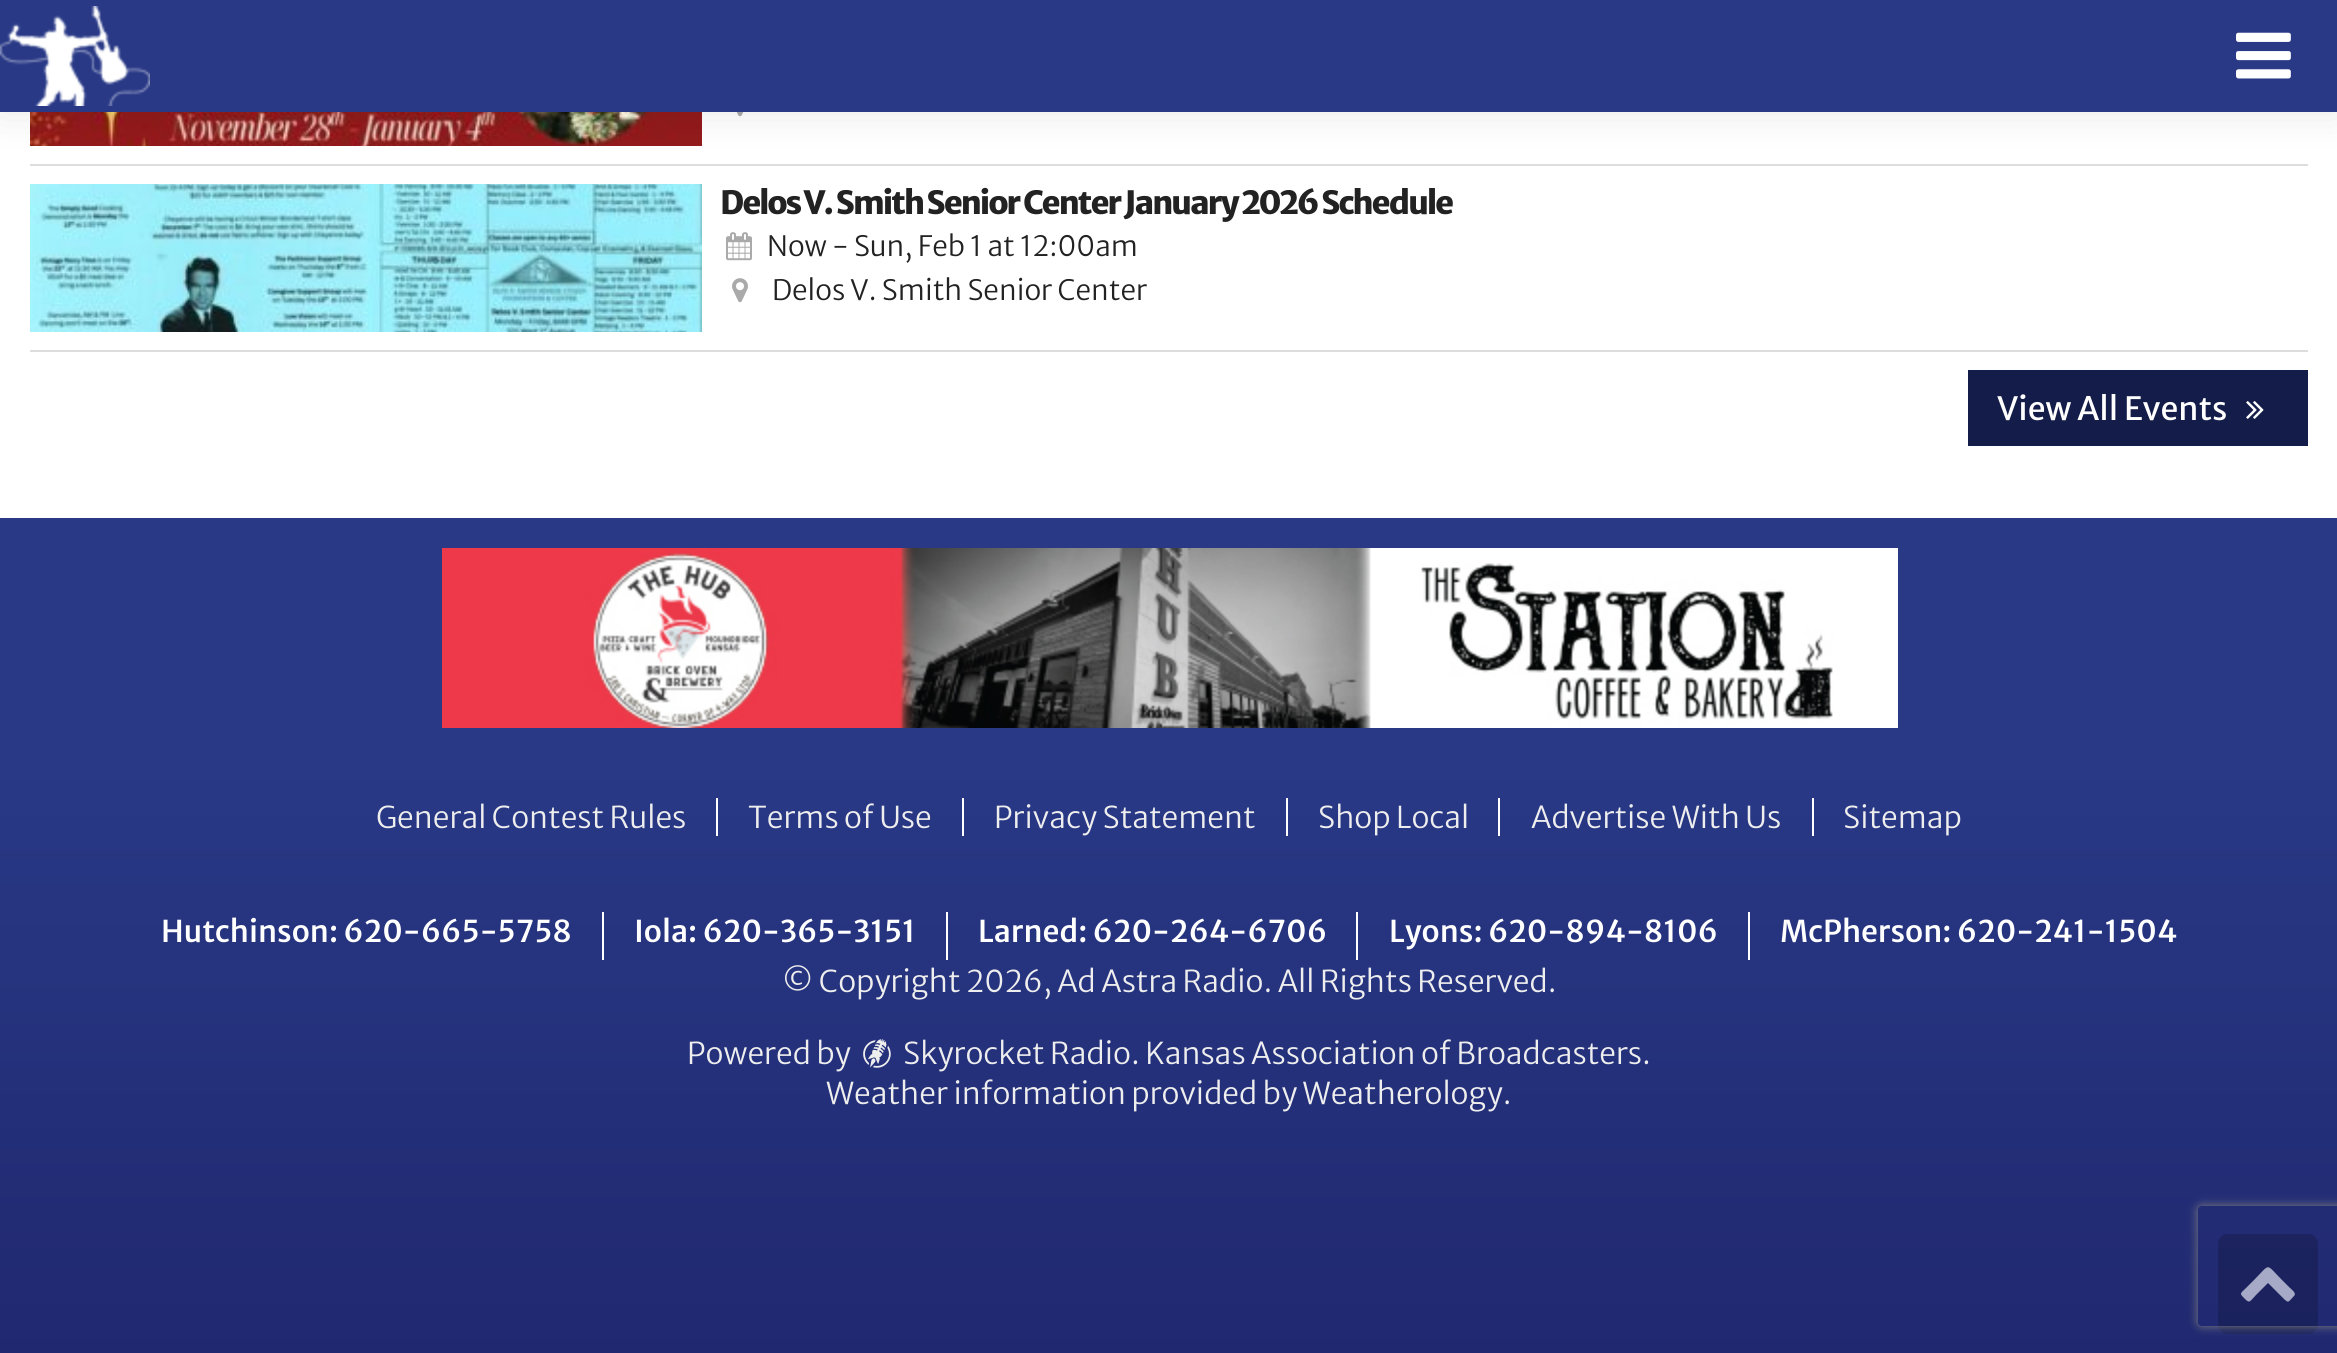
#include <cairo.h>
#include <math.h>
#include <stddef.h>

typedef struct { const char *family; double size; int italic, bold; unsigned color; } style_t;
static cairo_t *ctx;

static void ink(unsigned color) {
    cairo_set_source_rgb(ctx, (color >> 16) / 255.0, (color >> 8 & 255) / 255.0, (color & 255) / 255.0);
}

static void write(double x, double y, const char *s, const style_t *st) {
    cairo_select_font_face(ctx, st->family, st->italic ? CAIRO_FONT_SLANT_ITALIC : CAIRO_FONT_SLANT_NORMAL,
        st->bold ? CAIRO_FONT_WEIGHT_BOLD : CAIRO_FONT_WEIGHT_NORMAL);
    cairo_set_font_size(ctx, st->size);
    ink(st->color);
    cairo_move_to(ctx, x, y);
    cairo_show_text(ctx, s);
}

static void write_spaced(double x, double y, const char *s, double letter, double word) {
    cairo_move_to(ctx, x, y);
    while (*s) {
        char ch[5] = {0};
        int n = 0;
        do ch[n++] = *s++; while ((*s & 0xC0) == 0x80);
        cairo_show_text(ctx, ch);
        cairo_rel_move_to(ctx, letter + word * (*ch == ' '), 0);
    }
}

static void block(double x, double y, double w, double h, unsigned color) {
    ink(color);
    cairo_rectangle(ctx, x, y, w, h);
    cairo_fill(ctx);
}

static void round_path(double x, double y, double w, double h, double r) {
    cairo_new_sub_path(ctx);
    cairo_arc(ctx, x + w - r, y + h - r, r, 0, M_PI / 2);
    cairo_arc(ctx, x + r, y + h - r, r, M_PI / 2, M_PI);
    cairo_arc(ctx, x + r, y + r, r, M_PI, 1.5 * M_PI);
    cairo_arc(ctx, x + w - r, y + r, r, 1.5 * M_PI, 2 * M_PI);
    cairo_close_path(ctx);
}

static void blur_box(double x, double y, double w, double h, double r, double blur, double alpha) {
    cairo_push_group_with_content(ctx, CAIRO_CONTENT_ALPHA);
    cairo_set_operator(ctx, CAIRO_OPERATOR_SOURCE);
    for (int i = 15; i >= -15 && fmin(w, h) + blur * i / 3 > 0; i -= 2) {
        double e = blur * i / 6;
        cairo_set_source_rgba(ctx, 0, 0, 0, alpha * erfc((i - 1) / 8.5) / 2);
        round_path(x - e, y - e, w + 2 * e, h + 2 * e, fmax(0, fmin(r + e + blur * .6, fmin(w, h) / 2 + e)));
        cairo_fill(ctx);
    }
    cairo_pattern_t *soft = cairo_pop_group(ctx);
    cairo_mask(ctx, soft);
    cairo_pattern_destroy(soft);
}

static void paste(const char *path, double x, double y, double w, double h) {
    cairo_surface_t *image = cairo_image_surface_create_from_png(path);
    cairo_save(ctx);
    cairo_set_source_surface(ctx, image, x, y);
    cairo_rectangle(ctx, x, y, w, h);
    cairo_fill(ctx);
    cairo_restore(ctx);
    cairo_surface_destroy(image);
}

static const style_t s1 = {"Merriweather Sans Light", 28, 0, 0, 0x222222};
static const style_t s2 = {"Merriweather Sans", 32, 0, 0, 0xffffff};
static const style_t s3 = {"Merriweather Sans Light", 30, 0, 0, 0xeeeeee};
static const style_t s4 = {"Merriweather Sans Medium", 30, 0, 0, 0xffffff};

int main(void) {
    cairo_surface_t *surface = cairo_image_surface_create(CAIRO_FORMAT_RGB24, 2337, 1353);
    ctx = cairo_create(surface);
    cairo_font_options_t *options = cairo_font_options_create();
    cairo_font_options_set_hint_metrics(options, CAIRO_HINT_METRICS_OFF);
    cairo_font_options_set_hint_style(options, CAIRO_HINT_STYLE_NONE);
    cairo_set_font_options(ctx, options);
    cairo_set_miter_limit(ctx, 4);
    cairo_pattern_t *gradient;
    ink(0xffffff);
    cairo_paint(ctx);
    block(30, 164, 2278, 2, 0xdddddd);
    paste("pic3.png", 30, 112, 672, 34);
    paste("pic4.png", 736, 112, 8, 5);
    ink(0x000000);
    blur_box(0, 0, 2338, 112, 0, 20, 0.1);
    block(0, 0, 2337, 112, 0x293986);
    paste("pic1.png", 0, 6, 150, 100);
    paste("pic2.png", 2236, 32, 55, 47);
    block(30, 350, 2278, 2, 0xdddddd);
    paste("pic5.png", 30, 184, 672, 148);
    cairo_select_font_face(ctx, "Merriweather Sans ExtraBold", CAIRO_FONT_SLANT_NORMAL, CAIRO_FONT_WEIGHT_NORMAL);
    cairo_set_font_size(ctx, 32);
    ink(0x222222);
    write_spaced(720, 214, "Delos V. Smith Senior Center January 2026 Schedule", -2, 0);
    paste("pic6.png", 726, 232, 26, 29);
    write(767, 256, "Now - Sun, Feb 1 at 12:00am", &s1);
    paste("pic7.png", 732, 278, 16, 25);
    write(772, 300, "Delos V. Smith Senior Center", &s1);
    block(1968, 370, 340, 76, 0x141d49);
    write(1997, 420, "View All Events", &s2);
    paste("pic8.png", 2246, 401, 18, 18);
    block(0, 518, 2337, 240, 0x293986);
    paste("pic9.png", 442, 548, 1456, 180);
    gradient = cairo_pattern_create_linear(1169, 758, 1169, 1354);
    cairo_pattern_add_color_stop_rgba(gradient, 0, 0.161, 0.224, 0.525, 1);
    cairo_pattern_add_color_stop_rgba(gradient, 1, 0.125, 0.157, 0.439, 1);
    cairo_set_source(ctx, gradient);
    cairo_pattern_destroy(gradient);
    cairo_rectangle(ctx, 0, 758, 2337, 595);
    cairo_fill(ctx);
    write(376, 828, "General Contest Rules", &s3);
    block(716, 798, 2, 38, 0xffffff);
    write(748, 828, "Terms of Use", &s3);
    block(962, 798, 2, 38, 0xffffff);
    write(994, 828, "Privacy Statement", &s3);
    block(1286, 798, 2, 38, 0xffffff);
    write(1318, 828, "Shop Local", &s3);
    block(1498, 798, 2, 38, 0xffffff);
    write(1531, 828, "Advertise With Us", &s3);
    block(1812, 798, 2, 38, 0xffffff);
    write(1843, 828, "Sitemap", &s3);
    write(161, 942, "Hutchinson: 620-665-5758", &s4);
    block(602, 912, 2, 48, 0xffffff);
    write(634, 942, "Iola: 620-365-3151", &s4);
    block(946, 912, 2, 48, 0xffffff);
    write(978, 942, "Larned: 620-264-6706", &s4);
    block(1356, 912, 2, 48, 0xffffff);
    write(1389, 942, "Lyons: 620-894-8106", &s4);
    block(1748, 912, 2, 48, 0xffffff);
    write(1780, 942, "McPherson: 620-241-1504", &s4);
    write(782, 992, "© Copyright 2026, Ad Astra Radio. All Rights Reserved.", &s3);
    write(687, 1064, "Powered by", &s3);
    paste("pic10.png", 863, 1039, 28, 29);
    write(903, 1064, "Skyrocket Radio. Kansas Association of Broadcasters.", &s3);
    write(826, 1104, "Weather information provided by Weatherology.", &s3);
    cairo_set_source_rgba(ctx, 0, 0, 0, 0.18);
    round_path(2218, 1234, 100, 100, 10);
    cairo_fill(ctx);
    ink(0xa6aac7);
    cairo_new_path(ctx);
    cairo_move_to(ctx, 2294, 1296);
    cairo_curve_to(ctx, 2288, 1302, 2289, 1304, 2283, 1298);
    cairo_line_to(ctx, 2268, 1283);
    cairo_line_to(ctx, 2256, 1295);
    cairo_curve_to(ctx, 2250, 1301, 2250, 1304, 2245, 1299);
    cairo_curve_to(ctx, 2239, 1293, 2240, 1294, 2246, 1288);
    cairo_line_to(ctx, 2254, 1280);
    cairo_curve_to(ctx, 2271, 1263, 2265, 1263, 2282, 1280);
    cairo_line_to(ctx, 2290, 1288);
    cairo_curve_to(ctx, 2291, 1289, 2297, 1293, 2294, 1296);
    cairo_close_path(ctx);
    cairo_fill(ctx);
    cairo_save(ctx);
    cairo_set_fill_rule(ctx, CAIRO_FILL_RULE_EVEN_ODD);
    cairo_new_path(ctx);
    cairo_move_to(ctx, 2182, 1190);
    cairo_line_to(ctx, 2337, 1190);
    cairo_line_to(ctx, 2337, 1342);
    cairo_line_to(ctx, 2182, 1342);
    cairo_close_path(ctx);
    cairo_move_to(ctx, 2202, 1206);
    cairo_line_to(ctx, 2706, 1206);
    cairo_curve_to(ctx, 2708, 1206, 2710, 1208, 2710, 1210);
    cairo_line_to(ctx, 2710, 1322);
    cairo_curve_to(ctx, 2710, 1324, 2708, 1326, 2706, 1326);
    cairo_line_to(ctx, 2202, 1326);
    cairo_curve_to(ctx, 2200, 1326, 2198, 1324, 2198, 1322);
    cairo_line_to(ctx, 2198, 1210);
    cairo_curve_to(ctx, 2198, 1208, 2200, 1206, 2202, 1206);
    cairo_close_path(ctx);
    cairo_clip(ctx);
    ink(0x808080);
    blur_box(2198, 1206, 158, 120, 4, 5, 1);
    cairo_restore(ctx);
    cairo_surface_write_to_png(surface, "screenshot.png");
    cairo_font_options_destroy(options);
    cairo_destroy(ctx);
    cairo_surface_destroy(surface);
    return 0;
}
